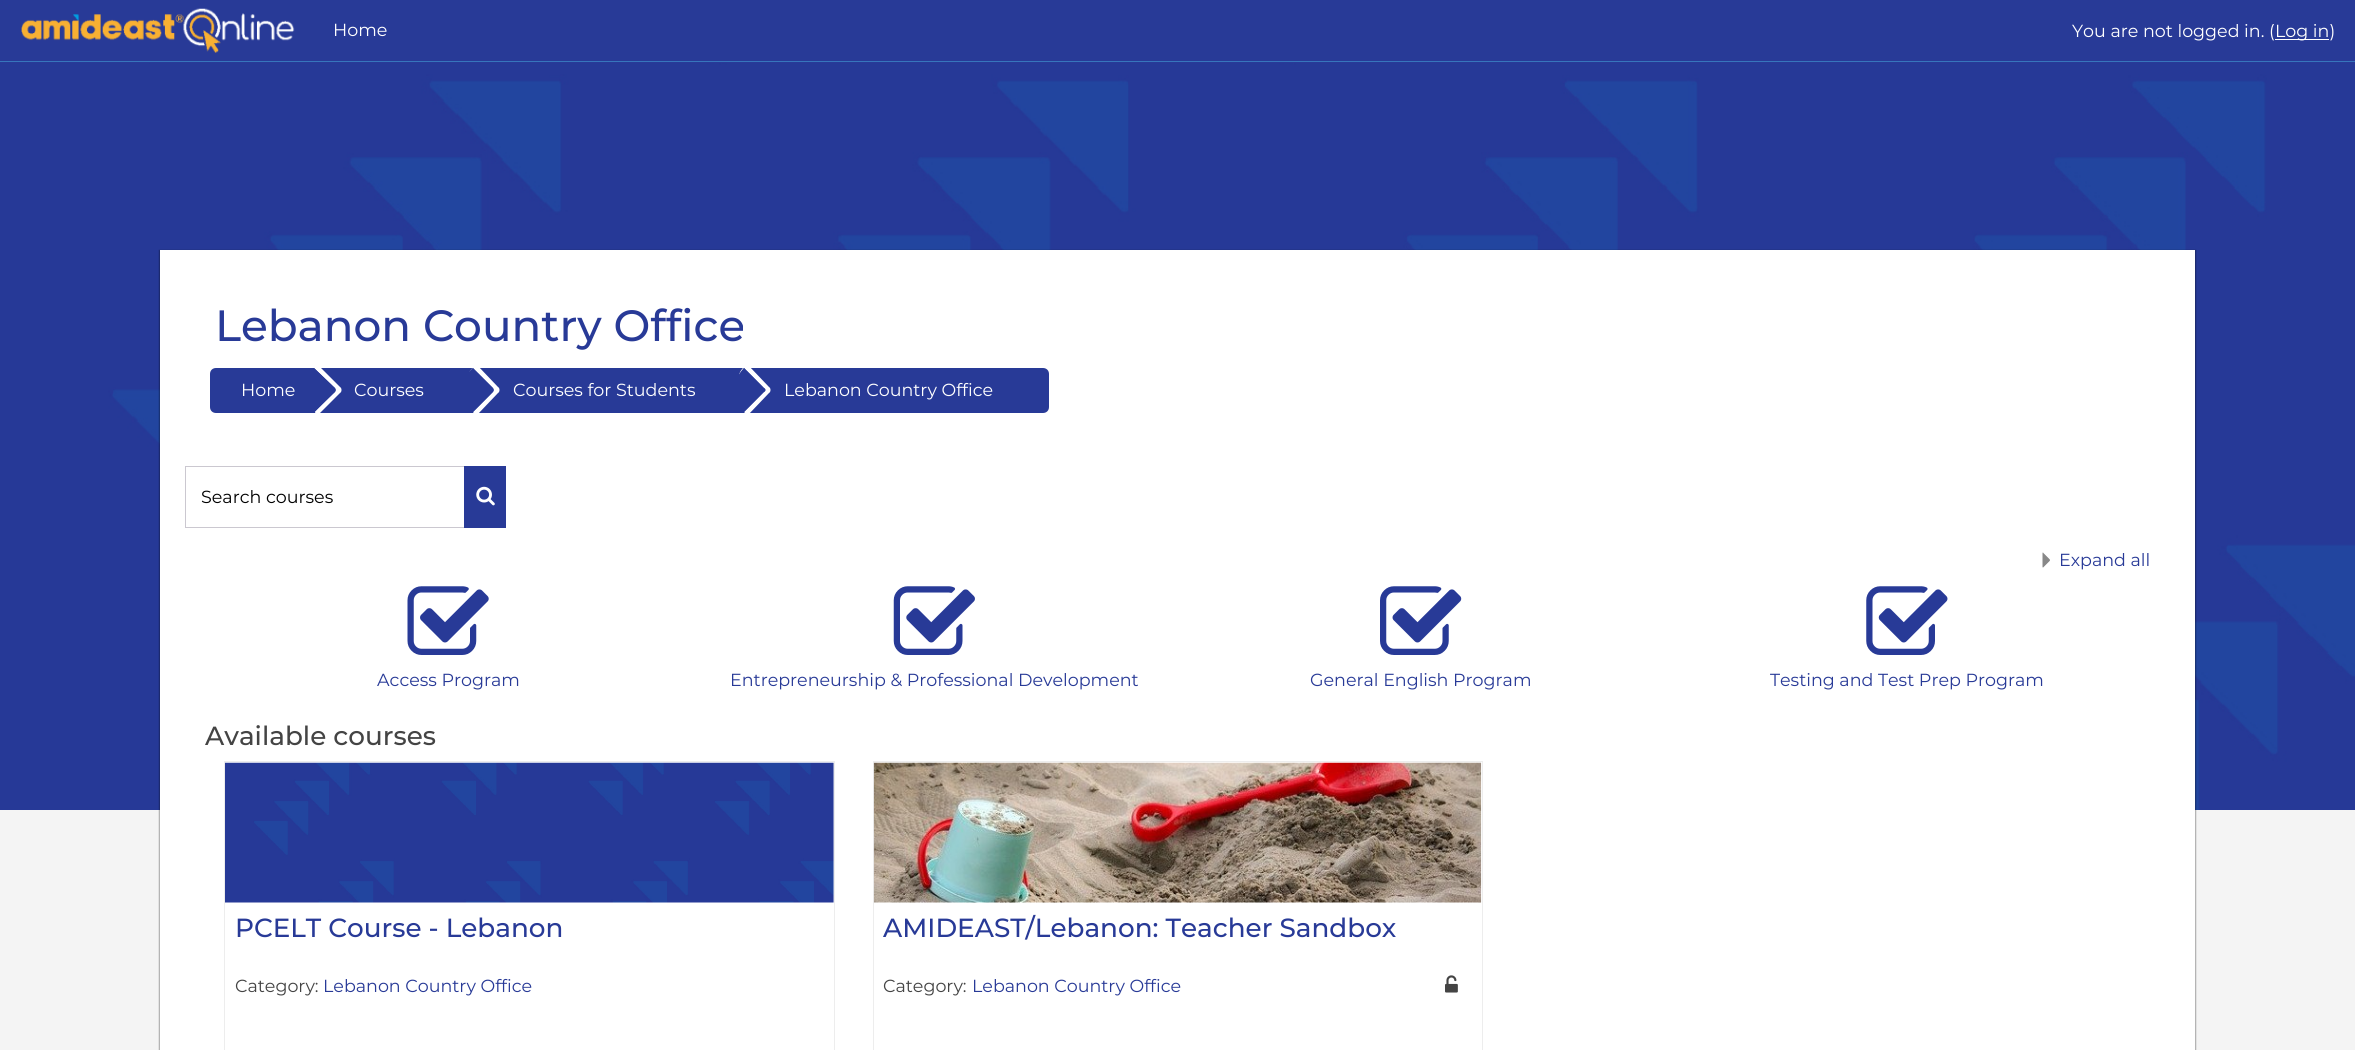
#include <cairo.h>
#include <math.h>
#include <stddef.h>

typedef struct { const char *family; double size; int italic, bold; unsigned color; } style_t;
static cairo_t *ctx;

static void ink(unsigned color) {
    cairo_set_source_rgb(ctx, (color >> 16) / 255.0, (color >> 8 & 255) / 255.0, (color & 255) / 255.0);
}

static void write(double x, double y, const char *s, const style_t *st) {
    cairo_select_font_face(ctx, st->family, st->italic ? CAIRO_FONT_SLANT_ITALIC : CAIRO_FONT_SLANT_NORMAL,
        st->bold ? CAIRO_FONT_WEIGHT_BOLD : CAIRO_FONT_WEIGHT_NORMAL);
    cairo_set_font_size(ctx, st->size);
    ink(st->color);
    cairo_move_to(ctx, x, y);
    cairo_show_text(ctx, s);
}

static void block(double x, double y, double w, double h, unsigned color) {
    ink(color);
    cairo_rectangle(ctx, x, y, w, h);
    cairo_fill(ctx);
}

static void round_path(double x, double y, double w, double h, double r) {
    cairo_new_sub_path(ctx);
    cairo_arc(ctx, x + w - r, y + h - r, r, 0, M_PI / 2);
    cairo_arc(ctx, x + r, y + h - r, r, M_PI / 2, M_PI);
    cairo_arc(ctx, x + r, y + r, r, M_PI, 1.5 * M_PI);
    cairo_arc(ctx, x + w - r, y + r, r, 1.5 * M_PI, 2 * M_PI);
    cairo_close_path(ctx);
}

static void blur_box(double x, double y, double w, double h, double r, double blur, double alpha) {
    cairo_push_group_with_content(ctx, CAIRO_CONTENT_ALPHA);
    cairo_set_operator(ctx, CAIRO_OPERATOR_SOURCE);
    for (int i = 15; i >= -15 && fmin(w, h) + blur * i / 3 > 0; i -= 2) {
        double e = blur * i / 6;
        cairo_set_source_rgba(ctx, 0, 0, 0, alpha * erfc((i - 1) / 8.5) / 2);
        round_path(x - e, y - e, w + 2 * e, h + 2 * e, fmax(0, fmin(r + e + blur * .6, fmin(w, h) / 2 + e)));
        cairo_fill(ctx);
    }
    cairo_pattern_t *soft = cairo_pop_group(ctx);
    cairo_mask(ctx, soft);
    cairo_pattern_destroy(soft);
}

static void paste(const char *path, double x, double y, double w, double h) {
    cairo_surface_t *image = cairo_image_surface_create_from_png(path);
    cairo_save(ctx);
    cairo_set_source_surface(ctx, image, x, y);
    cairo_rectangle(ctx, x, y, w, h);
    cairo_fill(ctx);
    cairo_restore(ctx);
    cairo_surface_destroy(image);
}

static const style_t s1 = {"Montserrat", 17.5, 0, 0, 0xffffff};
static const style_t s2 = {"Montserrat Medium", 43.75, 0, 0, 0x283a97};
static const style_t s3 = {"Montserrat", 17.5, 0, 0, 0x000000};
static const style_t s4 = {"Montserrat", 17.5, 0, 0, 0x283a97};
static const style_t s5 = {"Montserrat Medium", 26.25, 0, 0, 0x444444};
static const style_t s6 = {"Montserrat Medium", 26.25, 0, 0, 0x283a97};
static const style_t s7 = {"Montserrat", 17.5, 0, 0, 0x444444};

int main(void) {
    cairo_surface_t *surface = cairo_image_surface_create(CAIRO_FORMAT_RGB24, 2355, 1050);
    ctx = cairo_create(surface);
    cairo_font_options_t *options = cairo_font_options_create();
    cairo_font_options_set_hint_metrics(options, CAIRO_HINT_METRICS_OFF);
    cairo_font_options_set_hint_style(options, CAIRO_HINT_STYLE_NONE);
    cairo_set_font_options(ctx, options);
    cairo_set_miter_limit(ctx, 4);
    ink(0xf4f4f4);
    cairo_paint(ctx);
    block(0, 0, 2355, 63, 0x283a97);
    block(0, 61, 2355, 1, 0x3775bc);
    paste("pic1.png", 21, 8, 274, 45);
    write(333, 36, "Home", &s1);
    write(2072, 37, "You are not logged in. (", &s1);
    block(2275, 39, 54, 1, 0xffffff);
    write(2275, 37, "Log in)", &s1);
    paste("pic2.png", 0, 63, 2355, 747);
    ink(0x000000);
    blur_box(159, 250, 2037, 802, 0, 0.5, 0.3);
    block(160, 250, 2035, 800, 0xffffff);
    write(215, 341, "Lebanon Country Office", &s2);
    cairo_new_path(ctx);
    cairo_move_to(ctx, 216, 368);
    cairo_line_to(ctx, 314, 368);
    cairo_line_to(ctx, 314, 413);
    cairo_line_to(ctx, 216, 413);
    cairo_curve_to(ctx, 212.5, 413, 210, 410.5, 210, 407);
    cairo_line_to(ctx, 210, 374);
    cairo_curve_to(ctx, 210, 370.5, 212.5, 368, 216, 368);
    cairo_close_path(ctx);
    cairo_fill(ctx);
    write(241, 396, "Home", &s1);
    block(314, 368, 430, 45, 0x283a97);
    cairo_save(ctx);
    cairo_rectangle(ctx, 210, 368, 839, 45);
    cairo_clip(ctx);
    ink(0xffffff);
    cairo_new_path(ctx);
    cairo_move_to(ctx, 318, 365);
    cairo_line_to(ctx, 315, 368);
    cairo_line_to(ctx, 335, 388);
    cairo_curve_to(ctx, 336, 389, 336, 391, 335, 392);
    cairo_line_to(ctx, 315, 412);
    cairo_line_to(ctx, 318, 415);
    cairo_line_to(ctx, 340, 393);
    cairo_curve_to(ctx, 342, 392, 342, 388, 340, 387);
    cairo_close_path(ctx);
    cairo_fill(ctx);
    cairo_new_path(ctx);
    cairo_move_to(ctx, 317, 365);
    cairo_line_to(ctx, 314, 368);
    cairo_line_to(ctx, 335, 388);
    cairo_curve_to(ctx, 336, 389, 336, 391, 335, 392);
    cairo_line_to(ctx, 315, 412);
    cairo_line_to(ctx, 317, 415);
    cairo_line_to(ctx, 338, 393);
    cairo_curve_to(ctx, 340, 392, 340, 388, 338, 387);
    cairo_close_path(ctx);
    cairo_fill(ctx);
    cairo_restore(ctx);
    cairo_new_path(ctx);
    cairo_move_to(ctx, 314, 368);
    cairo_line_to(ctx, 335, 388);
    cairo_curve_to(ctx, 336, 389, 336, 391, 335, 392);
    cairo_line_to(ctx, 314, 412);
    cairo_curve_to(ctx, 302, 400, 302, 380, 314, 368);
    cairo_close_path(ctx);
    cairo_fill(ctx);
    write(354, 396, "Courses", &s1);
    cairo_save(ctx);
    cairo_rectangle(ctx, 210, 368, 839, 45);
    cairo_clip(ctx);
    cairo_new_path(ctx);
    cairo_move_to(ctx, 477, 365);
    cairo_curve_to(ctx, 475, 366, 474, 366, 473, 368);
    cairo_line_to(ctx, 493, 388);
    cairo_curve_to(ctx, 494, 389, 494, 391, 493, 392);
    cairo_line_to(ctx, 474, 412);
    cairo_line_to(ctx, 477, 415);
    cairo_line_to(ctx, 498, 393);
    cairo_curve_to(ctx, 500, 392, 500, 388, 498, 387);
    cairo_close_path(ctx);
    cairo_fill(ctx);
    cairo_new_path(ctx);
    cairo_move_to(ctx, 475, 365);
    cairo_line_to(ctx, 469, 372);
    cairo_line_to(ctx, 473, 368);
    cairo_line_to(ctx, 493, 388);
    cairo_curve_to(ctx, 494, 389, 494, 391, 493, 392);
    cairo_line_to(ctx, 473, 412);
    cairo_line_to(ctx, 475, 415);
    cairo_line_to(ctx, 497, 393);
    cairo_curve_to(ctx, 499, 392, 499, 388, 497, 387);
    cairo_close_path(ctx);
    cairo_fill(ctx);
    cairo_restore(ctx);
    ink(0x283a97);
    cairo_new_path(ctx);
    cairo_move_to(ctx, 473, 368);
    cairo_line_to(ctx, 493, 388);
    cairo_curve_to(ctx, 494, 389, 494, 391, 493, 392);
    cairo_line_to(ctx, 473, 412);
    cairo_curve_to(ctx, 461, 400, 461, 380, 473, 368);
    cairo_close_path(ctx);
    cairo_fill(ctx);
    write(513, 396, "Courses for Students", &s1);
    ink(0x283a97);
    cairo_new_path(ctx);
    cairo_move_to(ctx, 744, 368);
    cairo_line_to(ctx, 1043, 368);
    cairo_curve_to(ctx, 1046.5, 368, 1049, 370.5, 1049, 374);
    cairo_line_to(ctx, 1049, 407);
    cairo_curve_to(ctx, 1049, 410.5, 1046.5, 413, 1043, 413);
    cairo_line_to(ctx, 744, 413);
    cairo_close_path(ctx);
    cairo_fill(ctx);
    cairo_save(ctx);
    cairo_rectangle(ctx, 210, 368, 839, 45);
    cairo_clip(ctx);
    ink(0xffffff);
    cairo_new_path(ctx);
    cairo_move_to(ctx, 748, 365);
    cairo_line_to(ctx, 745, 368);
    cairo_line_to(ctx, 764, 388);
    cairo_curve_to(ctx, 766, 389, 766, 391, 764, 392);
    cairo_line_to(ctx, 745, 412);
    cairo_line_to(ctx, 748, 415);
    cairo_line_to(ctx, 769, 393);
    cairo_curve_to(ctx, 771, 392, 771, 388, 769, 387);
    cairo_close_path(ctx);
    cairo_fill(ctx);
    cairo_new_path(ctx);
    cairo_move_to(ctx, 747, 365);
    cairo_curve_to(ctx, 743, 367, 740, 371, 739, 375);
    cairo_line_to(ctx, 744, 368);
    cairo_line_to(ctx, 764, 388);
    cairo_curve_to(ctx, 766, 389, 766, 391, 764, 392);
    cairo_line_to(ctx, 744, 412);
    cairo_line_to(ctx, 747, 415);
    cairo_line_to(ctx, 768, 393);
    cairo_curve_to(ctx, 770, 392, 770, 388, 768, 387);
    cairo_close_path(ctx);
    cairo_fill(ctx);
    cairo_restore(ctx);
    cairo_new_path(ctx);
    cairo_move_to(ctx, 744, 368);
    cairo_line_to(ctx, 764, 388);
    cairo_curve_to(ctx, 766, 389, 766, 391, 764, 392);
    cairo_line_to(ctx, 744, 412);
    cairo_curve_to(ctx, 732, 400, 732, 380, 744, 368);
    cairo_close_path(ctx);
    cairo_fill(ctx);
    write(784, 396, "Lebanon Country Office", &s1);
    cairo_rectangle(ctx, 185.5, 466.5, 279, 61);
    ink(0xcbc8d0);
    cairo_set_line_width(ctx, 1);
    cairo_stroke(ctx);
    write(201, 503, "Search courses", &s3);
    block(464, 466, 42, 62, 0x283a97);
    paste("pic3.png", 476, 486, 19, 20);
    paste("pic4.png", 2042, 552, 8, 16);
    write(2059, 566, "Expand all", &s4);
    paste("pic5.png", 407, 586, 82, 69);
    write(377, 686, "Access Program", &s4);
    paste("pic6.png", 893, 586, 82, 69);
    write(730, 686, "Entrepreneurship & Professional Development", &s4);
    paste("pic7.png", 1380, 586, 82, 69);
    write(1310, 686, "General English Program", &s4);
    paste("pic8.png", 1866, 586, 82, 69);
    write(1770, 686, "Testing and Test Prep Program", &s4);
    write(205, 745, "Available courses", &s5);
    cairo_rectangle(ctx, 224.5, 761.5, 610, 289);
    ink(0xededed);
    cairo_stroke(ctx);
    paste("pic9.png", 225, 762, 609, 141);
    write(235, 937, "PCELT Course - Lebanon", &s6);
    write(235, 992, "Category:", &s7);
    write(323, 992, "Lebanon Country Office", &s4);
    cairo_rectangle(ctx, 873.5, 761.5, 609, 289);
    ink(0xededed);
    cairo_stroke(ctx);
    paste("pic10.png", 873, 762, 609, 141);
    write(883, 937, "AMIDEAST/Lebanon: Teacher Sandbox", &s6);
    write(883, 992, "Category:", &s7);
    write(972, 992, "Lebanon Country Office", &s4);
    paste("pic11.png", 1445, 975, 13, 18);
    cairo_surface_write_to_png(surface, "screenshot.png");
    cairo_font_options_destroy(options);
    cairo_destroy(ctx);
    cairo_surface_destroy(surface);
    return 0;
}
